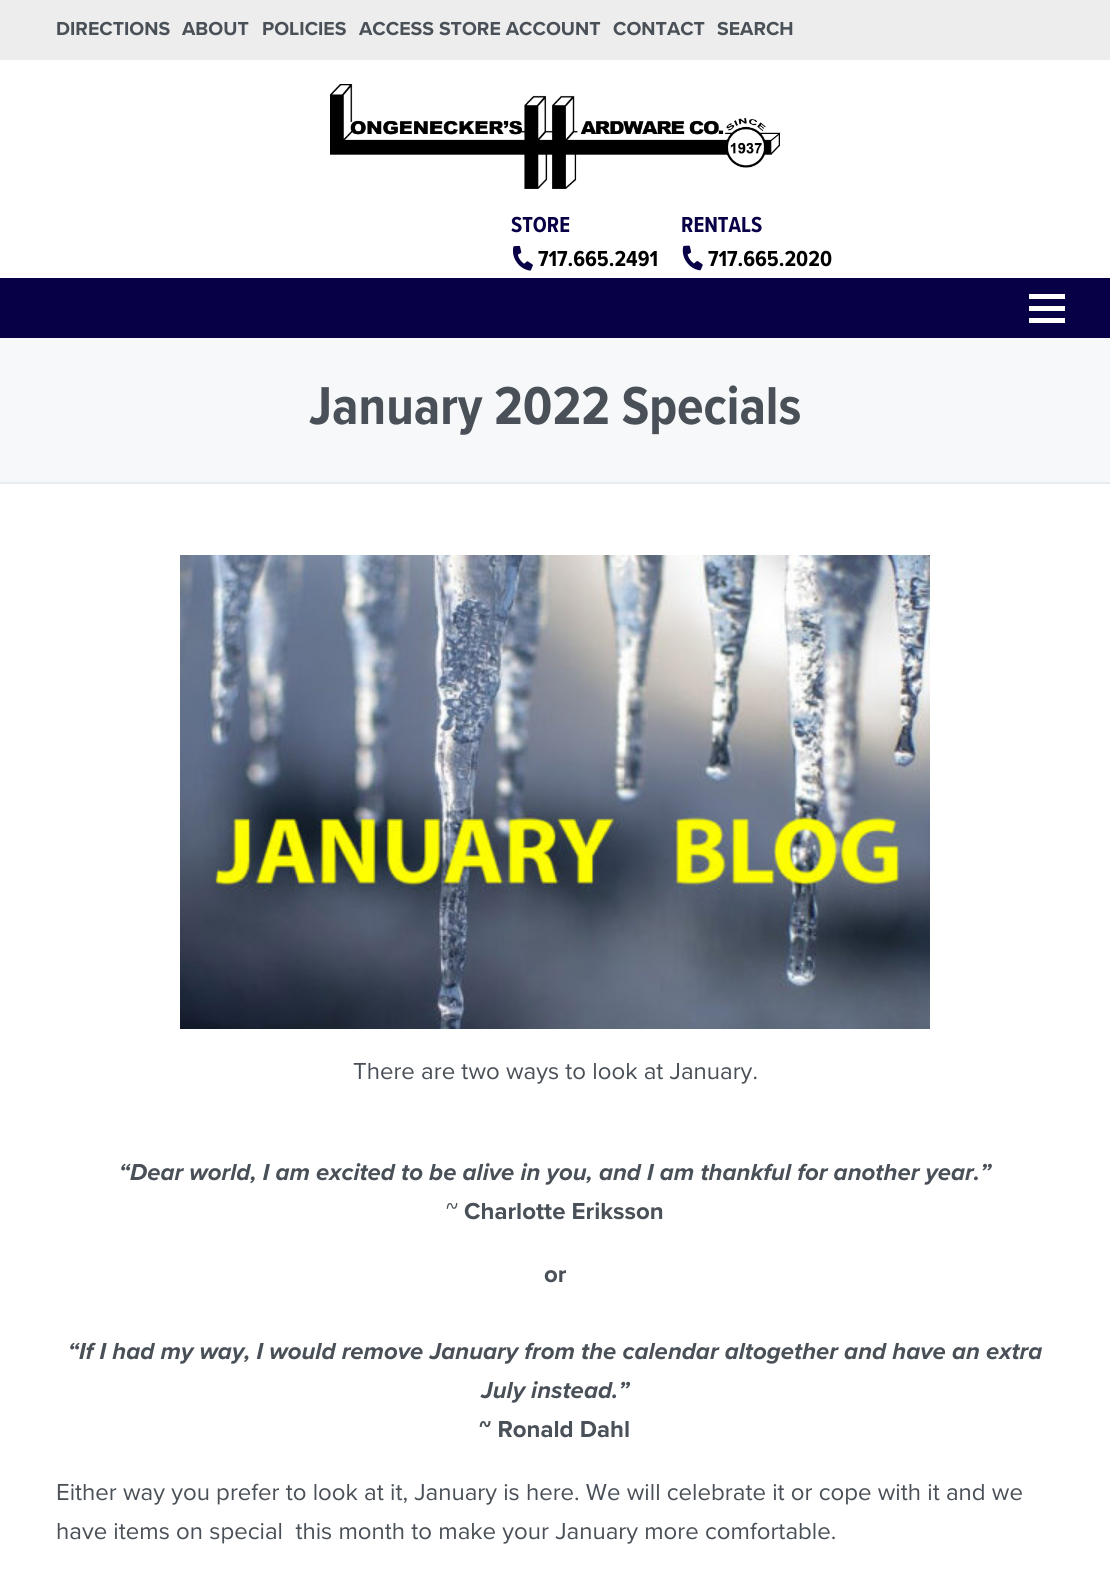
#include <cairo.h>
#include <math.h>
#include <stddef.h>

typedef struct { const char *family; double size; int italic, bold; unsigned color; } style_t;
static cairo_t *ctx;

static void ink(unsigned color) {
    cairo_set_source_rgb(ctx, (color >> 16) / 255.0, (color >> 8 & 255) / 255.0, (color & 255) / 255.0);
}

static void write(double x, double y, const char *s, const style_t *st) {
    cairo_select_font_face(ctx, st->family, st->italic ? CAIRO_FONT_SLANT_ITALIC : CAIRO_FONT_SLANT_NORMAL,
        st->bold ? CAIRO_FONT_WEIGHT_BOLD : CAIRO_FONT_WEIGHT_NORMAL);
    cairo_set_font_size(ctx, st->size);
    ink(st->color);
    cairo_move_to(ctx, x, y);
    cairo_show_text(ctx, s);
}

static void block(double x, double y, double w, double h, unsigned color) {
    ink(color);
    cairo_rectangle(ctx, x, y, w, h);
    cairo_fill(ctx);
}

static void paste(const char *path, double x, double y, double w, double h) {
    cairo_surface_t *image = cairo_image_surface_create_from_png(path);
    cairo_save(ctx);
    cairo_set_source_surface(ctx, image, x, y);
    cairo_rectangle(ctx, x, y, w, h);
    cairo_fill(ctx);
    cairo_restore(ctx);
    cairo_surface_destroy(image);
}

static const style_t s1 = {"Proxima Nova", 19.5, 0, 1, 0x495057};
static const style_t s2 = {"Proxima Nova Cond", 22.5, 0, 1, 0x070046};
static const style_t s3 = {"Proxima Nova Cond", 22.5, 0, 1, 0x000000};
static const style_t s4 = {"Proxima Nova Cond", 55.25, 0, 1, 0x495057};
static const style_t s5 = {"Proxima Nova", 24, 0, 0, 0x495057};
static const style_t s6 = {"Proxima Nova", 24, 1, 1, 0x495057};
static const style_t s7 = {"Proxima Nova", 24, 0, 1, 0x495057};

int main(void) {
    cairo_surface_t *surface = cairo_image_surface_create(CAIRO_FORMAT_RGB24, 1110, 1584);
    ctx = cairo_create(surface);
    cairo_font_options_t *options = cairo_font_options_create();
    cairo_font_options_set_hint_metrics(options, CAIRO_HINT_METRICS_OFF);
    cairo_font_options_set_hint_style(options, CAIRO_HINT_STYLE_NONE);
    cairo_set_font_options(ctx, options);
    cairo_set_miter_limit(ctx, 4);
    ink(0xffffff);
    cairo_paint(ctx);
    block(0, 0, 1110, 60, 0xededed);
    write(56, 35, "DIRECTIONS", &s1);
    write(182, 35, "ABOUT", &s1);
    write(262, 35, "POLICIES", &s1);
    write(359, 35, "ACCESS STORE ACCOUNT", &s1);
    write(613, 35, "CONTACT", &s1);
    write(717, 35, "SEARCH", &s1);
    paste("pic1.png", 330, 84, 450, 105);
    write(511, 232, "STORE", &s2);
    paste("pic2.png", 513, 245, 20, 26);
    write(538, 266, "717.665.2491", &s3);
    write(681, 232, "RENTALS", &s2);
    paste("pic3.png", 682, 245, 21, 26);
    write(708, 266, "717.665.2020", &s3);
    block(0, 278, 1110, 60, 0x070046);
    block(1029, 306, 36, 5, 0xffffff);
    block(1029, 294, 36, 5, 0xffffff);
    block(1029, 318, 36, 5, 0xffffff);
    block(0, 482, 1110, 2, 0xe9ecef);
    block(0, 338, 1110, 144, 0xf7f8f9);
    write(309, 424, "January 2022 Specials", &s4);
    paste("pic4.png", 180, 555, 750, 474);
    write(353, 1079, "There are two ways to look at January.", &s5);
    write(119, 1180, "“Dear world, I am excited to be alive in you, and I am thankful for another year.”", &s6);
    write(446, 1219, "~", &s5);
    write(464, 1219, "Charlotte Eriksson", &s7);
    write(544, 1282, "or", &s7);
    write(68, 1359, "“If I had my way, I would remove January from the calendar altogether and have an extra", &s6);
    write(481, 1398, "July instead.”", &s6);
    write(479, 1437, "~ Ronald Dahl", &s7);
    write(56, 1500, "Either way you prefer to look at it, January is here. We will celebrate it or cope with it and we", &s5);
    write(56, 1539, "have items on special  this month to make your January more comfortable.", &s5);
    cairo_surface_write_to_png(surface, "screenshot.png");
    cairo_font_options_destroy(options);
    cairo_destroy(ctx);
    cairo_surface_destroy(surface);
    return 0;
}
